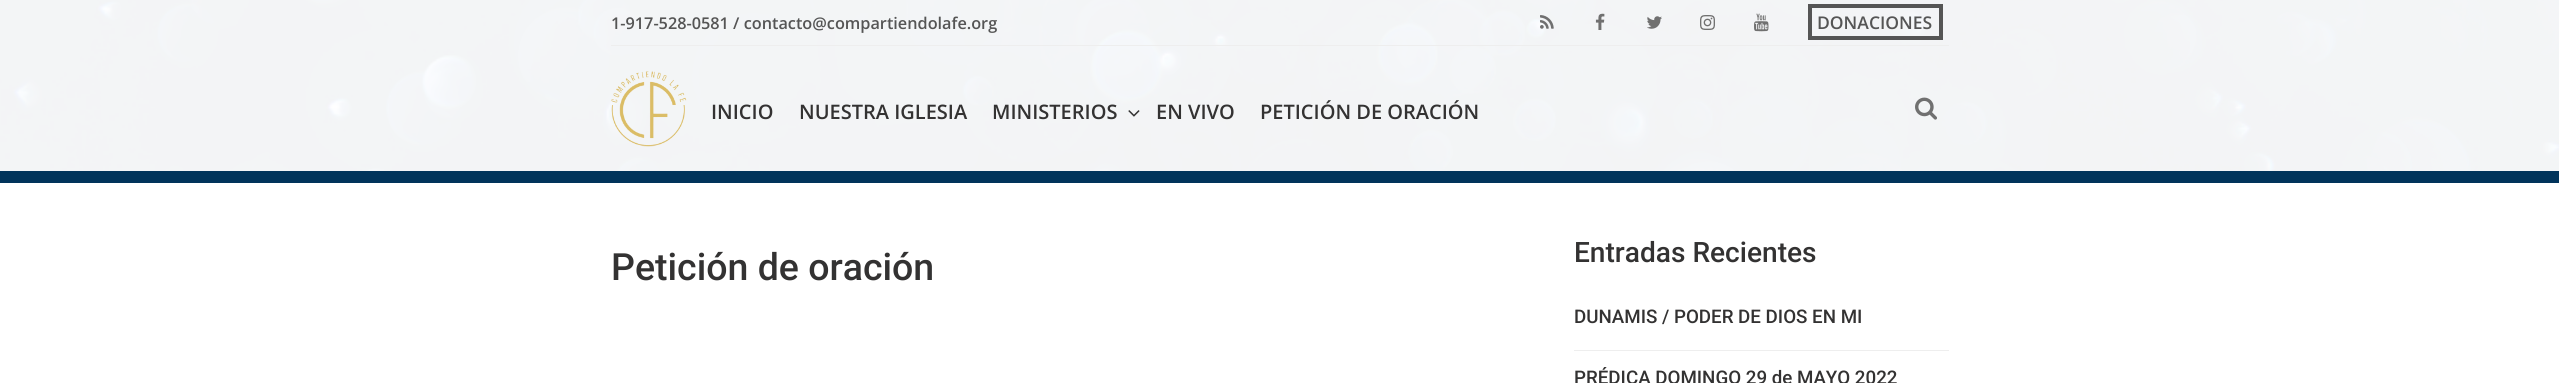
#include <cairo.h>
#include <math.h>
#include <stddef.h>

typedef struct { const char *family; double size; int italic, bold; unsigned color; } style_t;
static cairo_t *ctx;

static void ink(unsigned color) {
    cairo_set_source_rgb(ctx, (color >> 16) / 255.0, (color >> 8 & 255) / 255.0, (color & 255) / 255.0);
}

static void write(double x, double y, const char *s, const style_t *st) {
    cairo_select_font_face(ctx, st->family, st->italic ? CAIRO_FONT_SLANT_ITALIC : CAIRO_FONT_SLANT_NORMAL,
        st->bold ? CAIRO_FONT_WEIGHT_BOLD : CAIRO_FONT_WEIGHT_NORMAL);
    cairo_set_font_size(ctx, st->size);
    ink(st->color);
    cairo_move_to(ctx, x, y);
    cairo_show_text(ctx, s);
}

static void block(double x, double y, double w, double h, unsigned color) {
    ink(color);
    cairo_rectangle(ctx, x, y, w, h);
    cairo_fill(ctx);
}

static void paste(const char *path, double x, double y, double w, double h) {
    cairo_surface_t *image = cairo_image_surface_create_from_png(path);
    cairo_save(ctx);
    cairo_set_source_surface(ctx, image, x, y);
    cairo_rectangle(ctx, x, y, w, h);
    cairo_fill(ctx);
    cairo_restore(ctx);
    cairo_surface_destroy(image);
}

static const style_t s1 = {"Open Sans SemiBold", 16.25, 0, 0, 0x555555};
static const style_t s2 = {"Open Sans SemiBold", 17.5, 0, 0, 0x555555};
static const style_t s3 = {"Open Sans SemiBold", 20, 0, 0, 0x333232};
static const style_t s4 = {"Roboto Medium", 37.5, 0, 0, 0x333232};
static const style_t s5 = {"Roboto Medium", 28.1, 0, 0, 0x333232};
static const style_t s6 = {"Roboto Medium", 18.75, 0, 0, 0x333232};

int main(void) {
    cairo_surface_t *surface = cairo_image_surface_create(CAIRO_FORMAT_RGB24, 2559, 383);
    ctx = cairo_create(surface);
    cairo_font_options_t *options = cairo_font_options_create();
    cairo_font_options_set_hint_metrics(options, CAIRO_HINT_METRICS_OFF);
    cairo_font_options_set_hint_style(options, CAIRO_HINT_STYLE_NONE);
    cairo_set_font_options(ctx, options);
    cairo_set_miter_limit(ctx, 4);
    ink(0xffffff);
    cairo_paint(ctx);
    paste("pic1.png", 0, 0, 2559, 171);
    cairo_set_source_rgba(ctx, 1, 1, 1, 0.95);
    cairo_rectangle(ctx, 0, 0, 2559, 171);
    cairo_fill(ctx);
    block(0, 171, 2559, 12, 0x01345b);
    block(611, 45, 1338, 1, 0xeeeeee);
    write(611, 29, "1-917-528-0581 / contacto@compartiendolafe.org", &s1);
    paste("pic2.png", 1540, 15, 14, 14);
    paste("pic3.png", 1595, 13, 10, 17);
    paste("pic4.png", 1647, 16, 15, 13);
    paste("pic5.png", 1700, 15, 15, 15);
    paste("pic6.png", 1754, 13, 15, 19);
    cairo_rectangle(ctx, 1810, 6, 131, 32);
    cairo_set_line_width(ctx, 4);
    cairo_stroke(ctx);
    write(1817, 29, "DONACIONES", &s2);
    paste("pic7.png", 611, 71, 76, 76);
    write(711, 119, "INICIO", &s3);
    write(799, 119, "NUESTRA IGLESIA", &s3);
    write(992, 119, "MINISTERIOS", &s3);
    paste("pic8.png", 1128, 110, 12, 7);
    write(1156, 119, "EN VIVO", &s3);
    write(1260, 119, "PETICIÓN DE ORACIÓN", &s3);
    paste("pic9.png", 1915, 97, 22, 23);
    write(611, 280, "Petición de oración", &s4);
    write(1574, 262, "Entradas Recientes", &s5);
    block(1574, 350, 375, 1, 0xeeeeee);
    write(1574, 323, "DUNAMIS / PODER DE DIOS EN MI", &s6);
    write(1574, 384, "PRÉDICA DOMINGO 29 de MAYO 2022", &s6);
    cairo_surface_write_to_png(surface, "screenshot.png");
    cairo_font_options_destroy(options);
    cairo_destroy(ctx);
    cairo_surface_destroy(surface);
    return 0;
}
